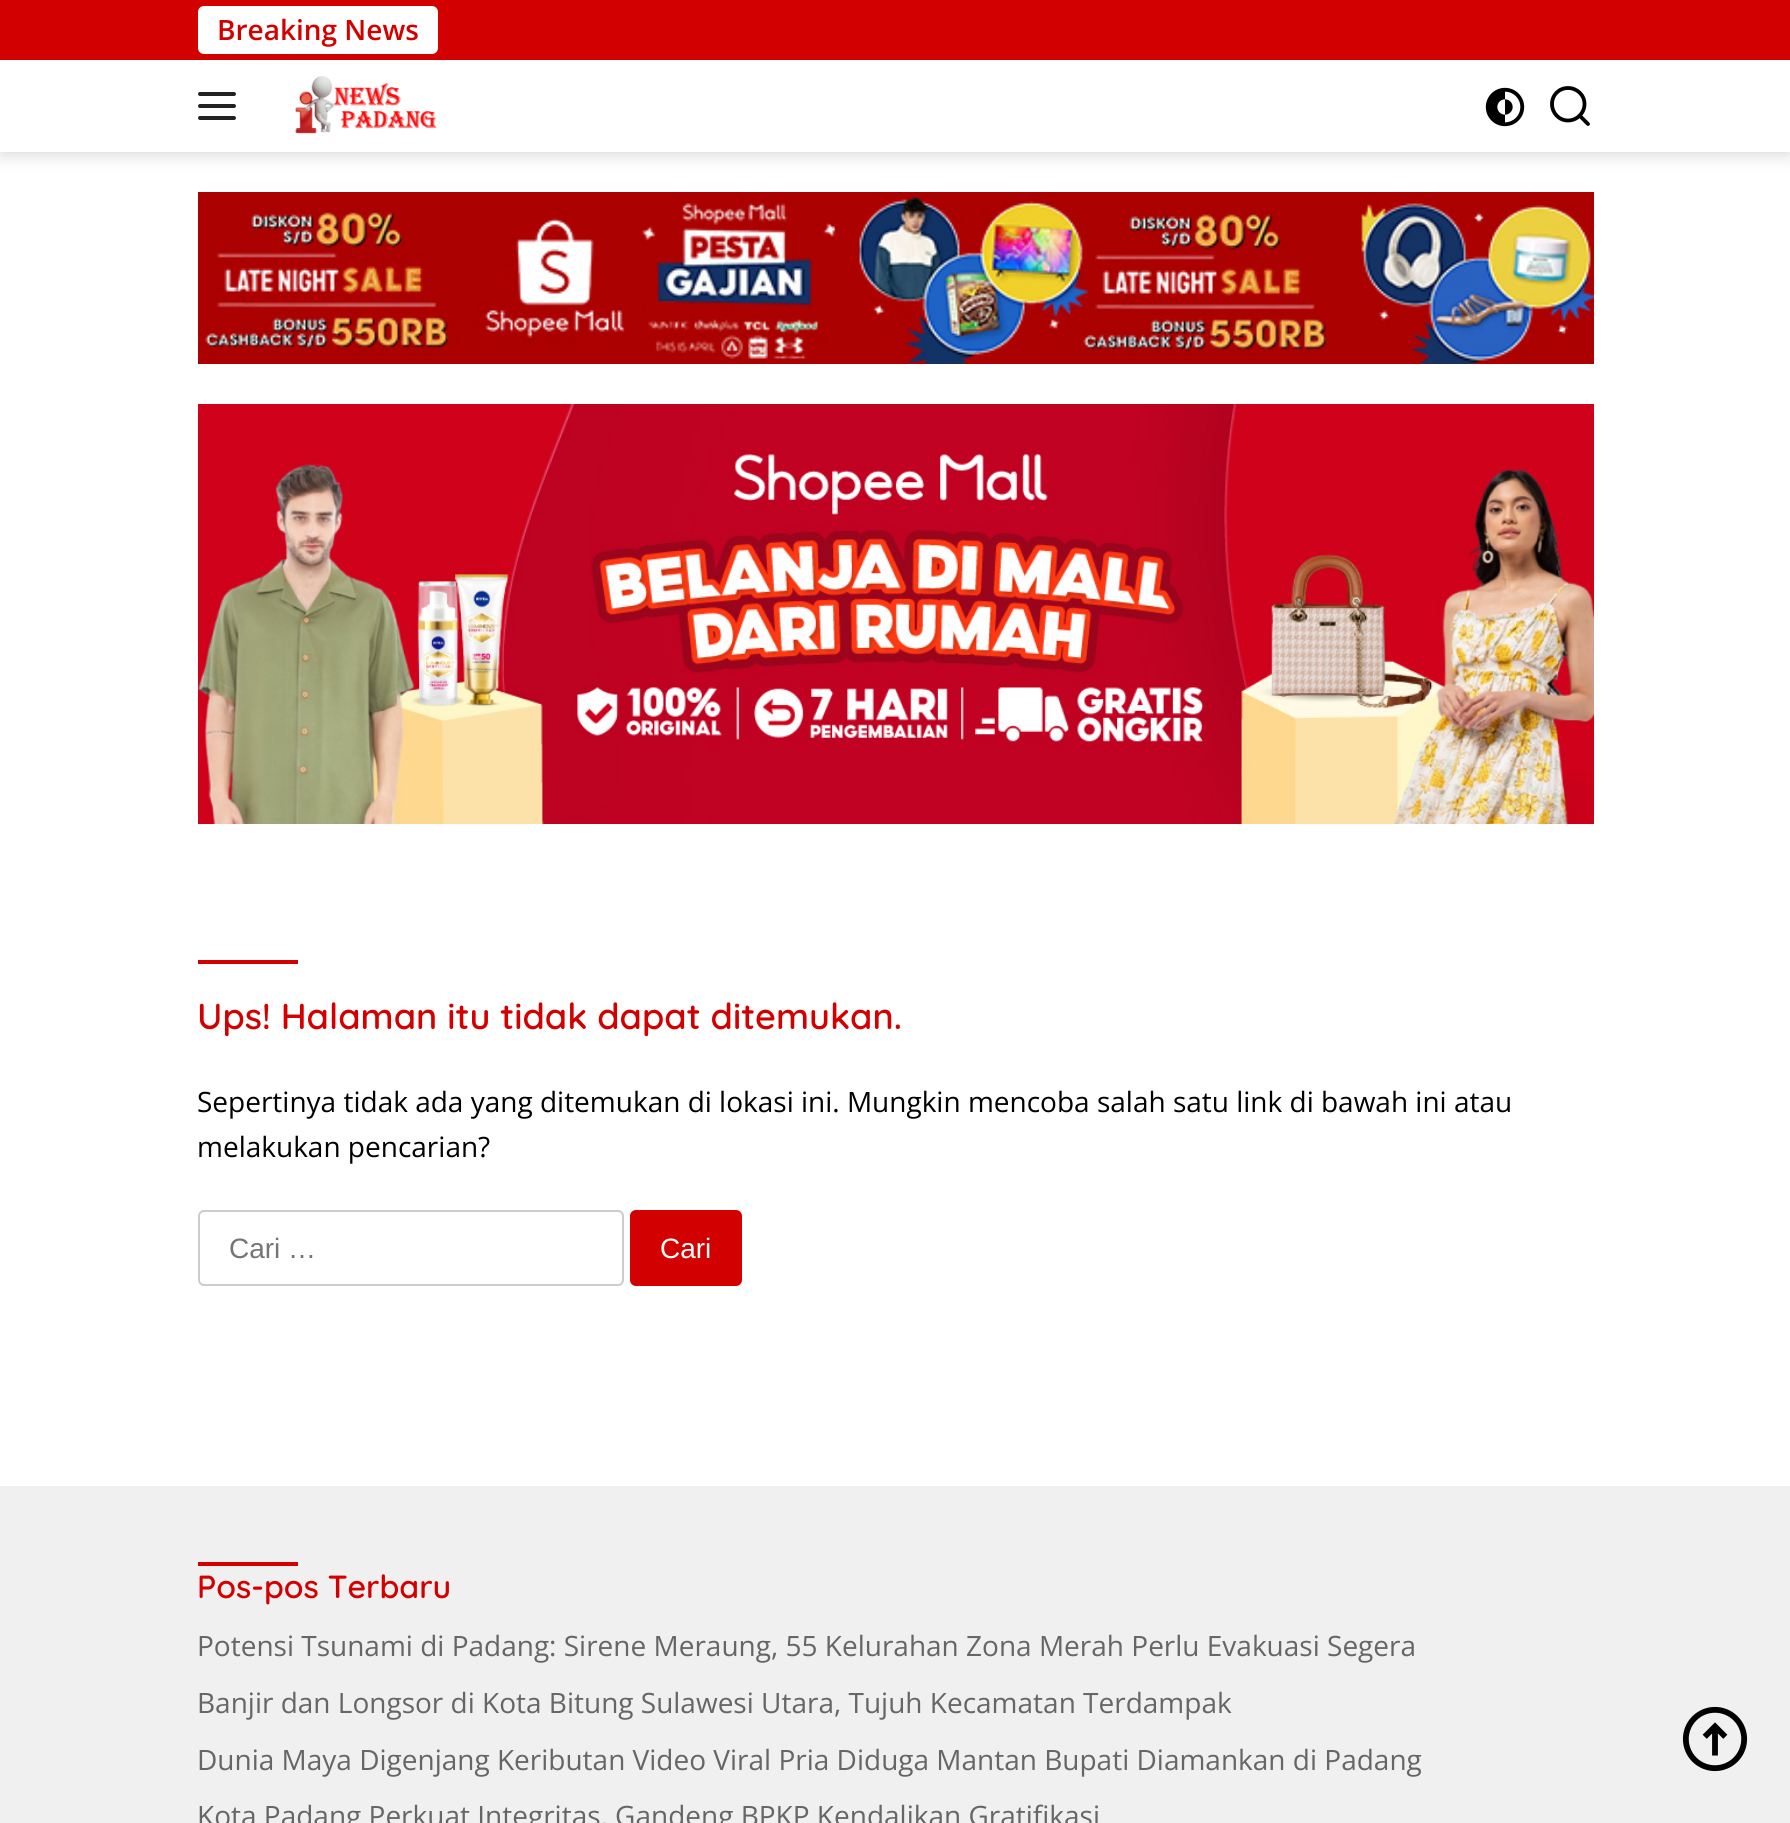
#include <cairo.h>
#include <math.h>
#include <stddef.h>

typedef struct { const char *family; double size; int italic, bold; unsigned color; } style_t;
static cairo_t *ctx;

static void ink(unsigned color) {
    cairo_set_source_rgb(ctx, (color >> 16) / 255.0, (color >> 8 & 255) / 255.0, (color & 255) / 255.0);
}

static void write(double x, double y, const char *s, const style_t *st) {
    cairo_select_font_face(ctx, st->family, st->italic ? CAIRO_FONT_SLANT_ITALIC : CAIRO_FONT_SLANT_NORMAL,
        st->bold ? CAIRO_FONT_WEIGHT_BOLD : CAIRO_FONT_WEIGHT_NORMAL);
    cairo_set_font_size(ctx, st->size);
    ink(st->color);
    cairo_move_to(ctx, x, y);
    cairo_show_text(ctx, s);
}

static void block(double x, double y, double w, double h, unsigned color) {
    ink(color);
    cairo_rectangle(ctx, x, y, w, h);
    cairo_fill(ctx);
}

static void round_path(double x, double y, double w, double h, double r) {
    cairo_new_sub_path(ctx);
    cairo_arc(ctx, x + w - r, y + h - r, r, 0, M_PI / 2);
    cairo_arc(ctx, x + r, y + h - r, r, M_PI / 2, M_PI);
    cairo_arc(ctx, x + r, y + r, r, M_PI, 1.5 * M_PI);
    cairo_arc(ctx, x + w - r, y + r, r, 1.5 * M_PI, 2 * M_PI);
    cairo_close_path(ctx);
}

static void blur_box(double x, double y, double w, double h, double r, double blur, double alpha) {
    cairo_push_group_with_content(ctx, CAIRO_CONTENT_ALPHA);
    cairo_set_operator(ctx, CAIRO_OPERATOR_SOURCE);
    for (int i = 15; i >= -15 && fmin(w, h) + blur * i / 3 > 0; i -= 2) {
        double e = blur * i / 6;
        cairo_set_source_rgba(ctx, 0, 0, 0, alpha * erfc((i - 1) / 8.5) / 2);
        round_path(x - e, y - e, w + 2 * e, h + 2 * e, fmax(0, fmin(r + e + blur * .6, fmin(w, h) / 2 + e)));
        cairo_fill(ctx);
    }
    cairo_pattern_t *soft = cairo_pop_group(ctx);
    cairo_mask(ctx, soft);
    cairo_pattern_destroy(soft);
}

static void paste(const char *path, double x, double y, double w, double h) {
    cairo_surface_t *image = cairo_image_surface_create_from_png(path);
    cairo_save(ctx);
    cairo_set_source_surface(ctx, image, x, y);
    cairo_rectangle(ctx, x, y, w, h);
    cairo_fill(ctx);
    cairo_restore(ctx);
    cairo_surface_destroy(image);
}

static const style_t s1 = {"Open Sans SemiBold", 28, 0, 0, 0xd30000};
static const style_t s2 = {"Quicksand SemiBold", 36, 0, 0, 0xd30000};
static const style_t s3 = {"Open Sans", 28, 0, 0, 0x000000};
static const style_t s4 = {"Liberation Sans", 28, 0, 0, 0x757575};
static const style_t s5 = {"Liberation Sans", 28, 0, 0, 0xffffff};
static const style_t s6 = {"Quicksand SemiBold", 32, 0, 0, 0xd30000};
static const style_t s7 = {"Open Sans", 28, 0, 0, 0x666666};

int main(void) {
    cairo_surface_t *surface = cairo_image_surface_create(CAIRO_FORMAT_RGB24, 1790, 1823);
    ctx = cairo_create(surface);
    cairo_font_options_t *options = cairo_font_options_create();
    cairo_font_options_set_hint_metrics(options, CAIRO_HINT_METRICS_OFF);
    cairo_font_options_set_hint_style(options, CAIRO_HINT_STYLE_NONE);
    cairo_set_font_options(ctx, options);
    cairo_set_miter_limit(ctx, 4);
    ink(0xffffff);
    cairo_paint(ctx);
    ink(0x000000);
    blur_box(0, 0, 1790, 152, 0, 10, 0.2);
    block(0, 60, 1790, 92, 0xffffff);
    block(0, 0, 1790, 60, 0xd30000);
    ink(0xffffff);
    round_path(198, 6, 240, 48, 6);
    cairo_fill(ctx);
    write(217, 40, "Breaking News", &s1);
    ink(0x222222);
    round_path(198, 92, 38, 4, 2);
    cairo_fill(ctx);
    round_path(198, 104, 38, 4, 2);
    cairo_fill(ctx);
    round_path(198, 116, 38, 4, 2);
    cairo_fill(ctx);
    paste("pic1.png", 295, 76, 142, 58);
    paste("pic2.png", 1485, 87, 40, 40);
    cairo_new_path(ctx);
    cairo_move_to(ctx, 1588, 124);
    cairo_line_to(ctx, 1579.5, 115.5);
    cairo_move_to(ctx, 1584.5, 104);
    cairo_curve_to(ctx, 1584.5, 113, 1577, 120.5, 1568, 120.5);
    cairo_curve_to(ctx, 1559, 120.5, 1552, 113, 1552, 104);
    cairo_curve_to(ctx, 1552, 95, 1559, 88, 1568, 88);
    cairo_curve_to(ctx, 1577, 88, 1584.5, 95, 1584.5, 104);
    cairo_close_path(ctx);
    ink(0x000000);
    cairo_set_line_width(ctx, 3.8);
    cairo_set_line_cap(ctx, CAIRO_LINE_CAP_ROUND);
    cairo_stroke(ctx);
    paste("pic3.png", 198, 192, 1396, 172);
    paste("pic4.png", 198, 404, 1396, 420);
    block(198, 960, 100, 4, 0xd30000);
    write(197, 1029, "Ups! Halaman itu tidak dapat ditemukan.", &s2);
    write(197, 1112, "Sepertinya tidak ada yang ditemukan di lokasi ini. Mungkin mencoba salah satu link di bawah ini atau", &s3);
    write(197, 1157, "melakukan pencarian?", &s3);
    round_path(199, 1211, 424, 74, 5);
    ink(0xcccccc);
    cairo_set_line_width(ctx, 2);
    cairo_set_line_cap(ctx, CAIRO_LINE_CAP_BUTT);
    cairo_stroke(ctx);
    write(229, 1258, "Cari …", &s4);
    ink(0xd30000);
    round_path(630, 1210, 112, 76, 6);
    cairo_fill(ctx);
    write(660, 1258, "Cari", &s5);
    block(0, 1486, 1790, 337, 0xf0f0f0);
    block(198, 1562, 100, 4, 0xd30000);
    write(197, 1598, "Pos-pos Terbaru", &s6);
    write(197, 1656, "Potensi Tsunami di Padang: Sirene Meraung, 55 Kelurahan Zona Merah Perlu Evakuasi Segera", &s7);
    write(197, 1713, "Banjir dan Longsor di Kota Bitung Sulawesi Utara, Tujuh Kecamatan Terdampak", &s7);
    write(197, 1770, "Dunia Maya Digenjang Keributan Video Viral Pria Diduga Mantan Bupati Diamankan di Padang", &s7);
    write(197, 1826, "Kota Padang Perkuat Integritas, Gandeng BPKP Kendalikan Gratifikasi", &s7);
    paste("pic5.png", 1682, 1706, 66, 66);
    cairo_surface_write_to_png(surface, "screenshot.png");
    cairo_font_options_destroy(options);
    cairo_destroy(ctx);
    cairo_surface_destroy(surface);
    return 0;
}
